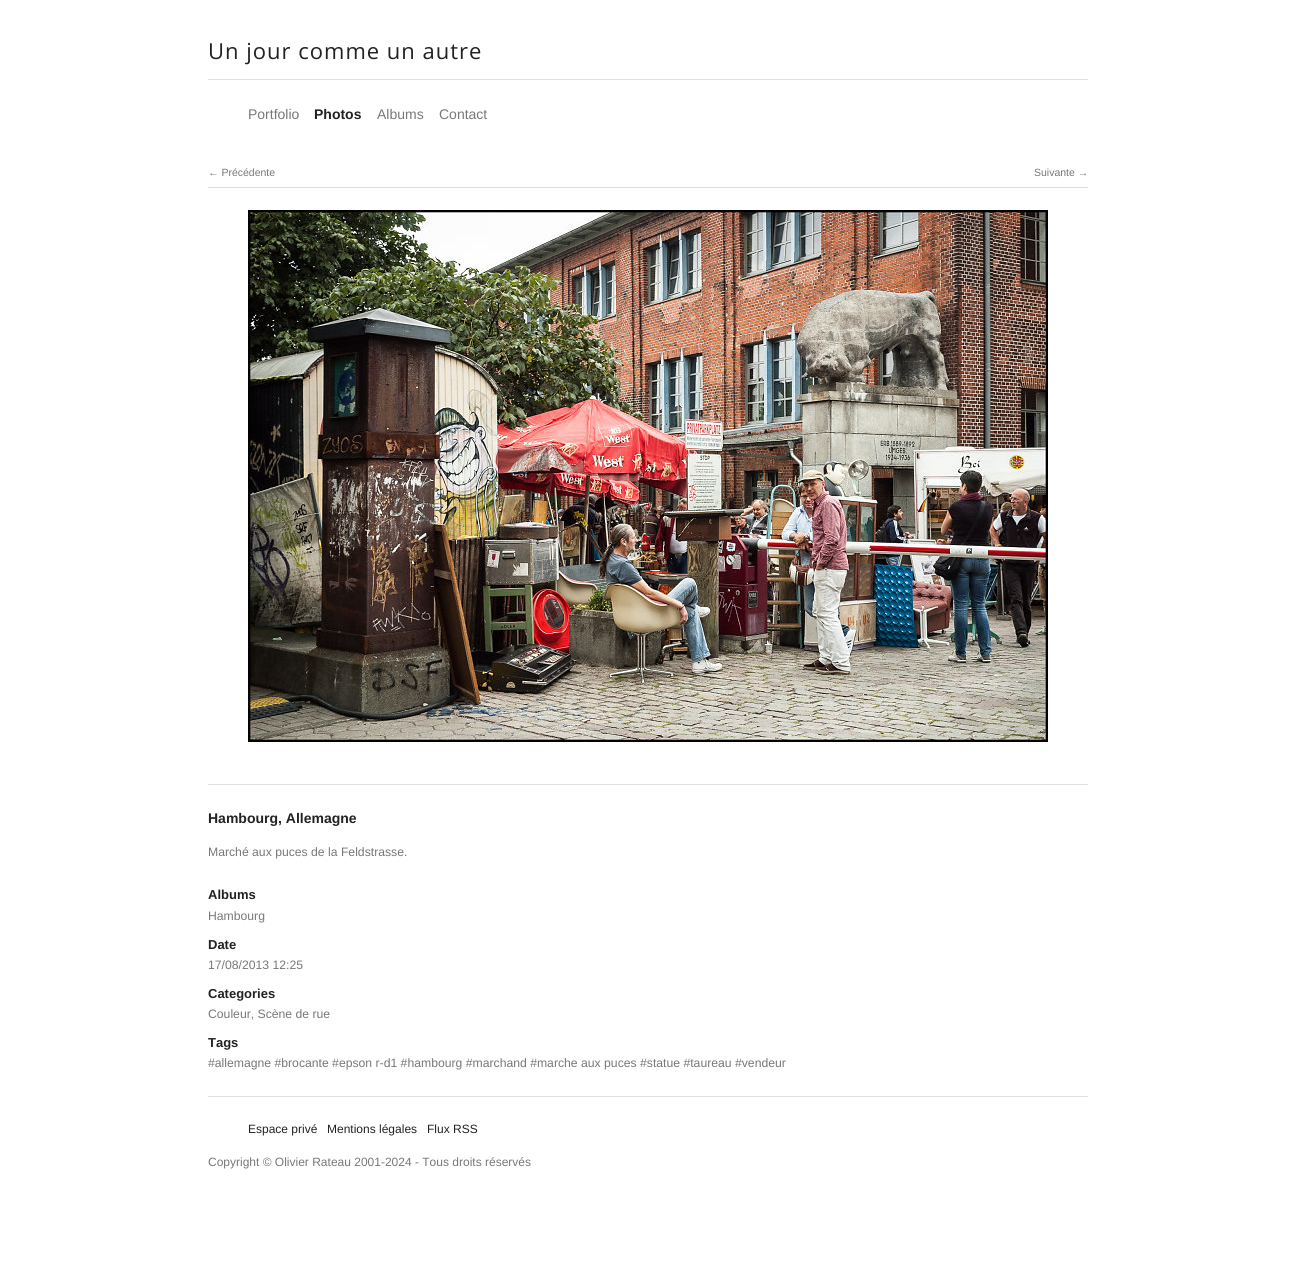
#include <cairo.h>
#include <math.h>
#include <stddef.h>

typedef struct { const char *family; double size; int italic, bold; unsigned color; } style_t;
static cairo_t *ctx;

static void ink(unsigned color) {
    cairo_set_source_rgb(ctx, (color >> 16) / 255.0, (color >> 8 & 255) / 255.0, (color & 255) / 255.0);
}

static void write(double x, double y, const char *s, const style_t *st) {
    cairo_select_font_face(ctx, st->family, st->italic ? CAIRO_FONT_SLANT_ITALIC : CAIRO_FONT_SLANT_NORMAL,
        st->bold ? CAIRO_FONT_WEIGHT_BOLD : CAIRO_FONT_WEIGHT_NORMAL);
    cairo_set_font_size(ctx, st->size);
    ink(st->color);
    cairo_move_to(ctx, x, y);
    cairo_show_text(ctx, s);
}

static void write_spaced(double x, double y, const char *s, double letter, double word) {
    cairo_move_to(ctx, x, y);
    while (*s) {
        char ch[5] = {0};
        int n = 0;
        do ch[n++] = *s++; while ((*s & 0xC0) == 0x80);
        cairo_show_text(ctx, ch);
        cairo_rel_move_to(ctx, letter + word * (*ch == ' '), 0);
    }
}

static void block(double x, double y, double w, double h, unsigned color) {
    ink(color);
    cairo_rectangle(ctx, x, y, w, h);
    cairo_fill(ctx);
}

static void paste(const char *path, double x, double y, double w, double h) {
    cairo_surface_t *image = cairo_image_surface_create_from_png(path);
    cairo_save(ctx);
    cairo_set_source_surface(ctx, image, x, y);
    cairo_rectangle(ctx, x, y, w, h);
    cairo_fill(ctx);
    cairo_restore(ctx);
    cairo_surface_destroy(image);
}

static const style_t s1 = {"Liberation Sans", 14, 0, 0, 0x787878};
static const style_t s2 = {"Liberation Sans", 14, 0, 1, 0x222222};
static const style_t s3 = {"Liberation Sans", 10.5, 0, 0, 0x787878};
static const style_t s4 = {"Liberation Sans", 12.2, 0, 0, 0x787878};
static const style_t s5 = {"Liberation Sans", 13, 0, 1, 0x222222};
static const style_t s6 = {"Liberation Sans", 12, 0, 0, 0x222222};
static const style_t s7 = {"Liberation Sans", 12, 0, 0, 0x787878};

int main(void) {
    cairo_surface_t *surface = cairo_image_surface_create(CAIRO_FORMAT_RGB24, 1296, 1268);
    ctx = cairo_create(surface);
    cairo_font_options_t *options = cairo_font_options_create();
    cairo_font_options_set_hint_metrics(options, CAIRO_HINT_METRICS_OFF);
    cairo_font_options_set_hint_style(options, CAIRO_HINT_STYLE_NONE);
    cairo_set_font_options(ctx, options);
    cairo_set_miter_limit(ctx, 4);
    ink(0xffffff);
    cairo_paint(ctx);
    cairo_select_font_face(ctx, "Open Sans", CAIRO_FONT_SLANT_NORMAL, CAIRO_FONT_WEIGHT_NORMAL);
    cairo_set_font_size(ctx, 22);
    ink(0x222222);
    write_spaced(208, 59, "Un jour comme un autre", 1, 0);
    block(208, 79, 880, 1, 0xdedede);
    write(248, 119, "Portfolio", &s1);
    write(314, 119, "Photos", &s2);
    write(377, 119, "Albums", &s1);
    write(439, 119, "Contact", &s1);
    block(208, 187, 880, 1, 0xdedede);
    write(208, 176, "← Précédente", &s3);
    write(1034, 176, "Suivante →", &s3);
    paste("pic1.png", 248, 210, 800, 532);
    block(208, 784, 880, 1, 0xdedede);
    write(208, 823, "Hambourg, Allemagne", &s2);
    write(208, 856, "Marché aux puces de la Feldstrasse.", &s4);
    write(208, 899, "Albums", &s5);
    write(208, 920, "Hambourg", &s4);
    write(208, 949, "Date", &s5);
    write(208, 969, "17/08/2013 12:25", &s4);
    write(208, 998, "Categories", &s5);
    write(208, 1018, "Couleur, Scène de rue", &s4);
    write(208, 1047, "Tags", &s5);
    write(208, 1067, "#allemagne #brocante #epson r-d1 #hambourg #marchand #marche aux puces #statue #taureau #vendeur", &s4);
    block(208, 1096, 880, 1, 0xdedede);
    write(248, 1133, "Espace privé", &s6);
    write(327, 1133, "Mentions légales", &s6);
    write(427, 1133, "Flux RSS", &s6);
    write(208, 1166, "Copyright © Olivier Rateau 2001-2024 - Tous droits réservés", &s7);
    cairo_surface_write_to_png(surface, "screenshot.png");
    cairo_font_options_destroy(options);
    cairo_destroy(ctx);
    cairo_surface_destroy(surface);
    return 0;
}
